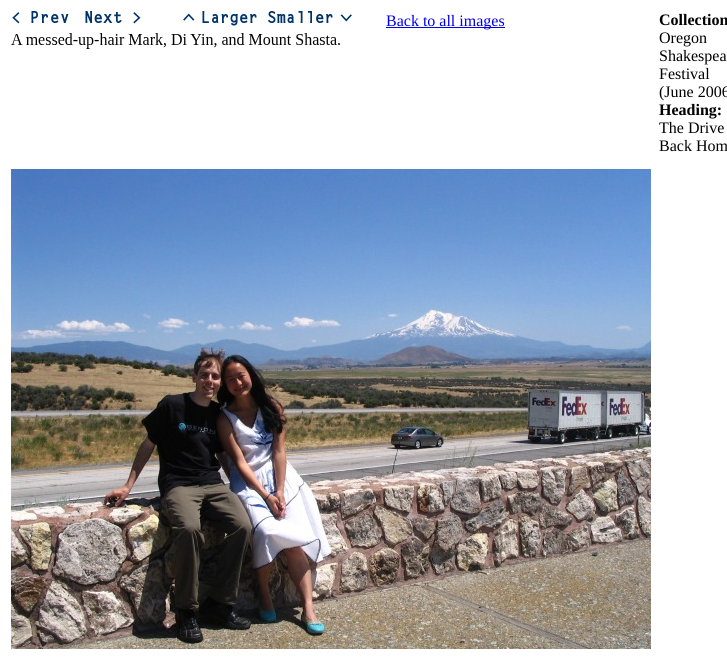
#include <cairo.h>
#include <math.h>
#include <stddef.h>

typedef struct { const char *family; double size; int italic, bold; unsigned color; } style_t;
static cairo_t *ctx;

static void ink(unsigned color) {
    cairo_set_source_rgb(ctx, (color >> 16) / 255.0, (color >> 8 & 255) / 255.0, (color & 255) / 255.0);
}

static void write(double x, double y, const char *s, const style_t *st) {
    cairo_select_font_face(ctx, st->family, st->italic ? CAIRO_FONT_SLANT_ITALIC : CAIRO_FONT_SLANT_NORMAL,
        st->bold ? CAIRO_FONT_WEIGHT_BOLD : CAIRO_FONT_WEIGHT_NORMAL);
    cairo_set_font_size(ctx, st->size);
    ink(st->color);
    cairo_move_to(ctx, x, y);
    cairo_show_text(ctx, s);
}

static void block(double x, double y, double w, double h, unsigned color) {
    ink(color);
    cairo_rectangle(ctx, x, y, w, h);
    cairo_fill(ctx);
}

static void paste(const char *path, double x, double y, double w, double h) {
    cairo_surface_t *image = cairo_image_surface_create_from_png(path);
    cairo_save(ctx);
    cairo_set_source_surface(ctx, image, x, y);
    cairo_rectangle(ctx, x, y, w, h);
    cairo_fill(ctx);
    cairo_restore(ctx);
    cairo_surface_destroy(image);
}

static const style_t s1 = {"Liberation Serif", 16, 0, 0, 0x0000ee};
static const style_t s2 = {"Liberation Serif", 16, 0, 1, 0x000000};
static const style_t s3 = {"Liberation Serif", 16, 0, 0, 0x000000};

int main(void) {
    cairo_surface_t *surface = cairo_image_surface_create(CAIRO_FORMAT_RGB24, 727, 665);
    ctx = cairo_create(surface);
    cairo_font_options_t *options = cairo_font_options_create();
    cairo_font_options_set_hint_metrics(options, CAIRO_HINT_METRICS_OFF);
    cairo_font_options_set_hint_style(options, CAIRO_HINT_STYLE_NONE);
    cairo_set_font_options(ctx, options);
    cairo_set_miter_limit(ctx, 4);
    ink(0xffffff);
    cairo_paint(ctx);
    paste("pic1.png", 12, 11, 57, 13);
    paste("pic2.png", 85, 11, 56, 13);
    paste("pic3.png", 183, 11, 74, 15);
    paste("pic4.png", 268, 11, 84, 12);
    block(386, 27, 119, 1, 0x0000ee);
    write(386, 26, "Back to all images", &s1);
    paste("pic5.png", 11, 33, 329, 16);
    write(659, 25, "Collection", &s2);
    write(659, 43, "Oregon", &s3);
    write(659, 61, "Shakespea", &s3);
    write(659, 79, "Festival", &s3);
    write(659, 97, "(June 2006", &s3);
    write(659, 115, "Heading:", &s2);
    write(659, 133, "The Drive", &s3);
    write(659, 151, "Back Hom", &s3);
    paste("pic6.png", 11, 169, 640, 480);
    cairo_surface_write_to_png(surface, "screenshot.png");
    cairo_font_options_destroy(options);
    cairo_destroy(ctx);
    cairo_surface_destroy(surface);
    return 0;
}
